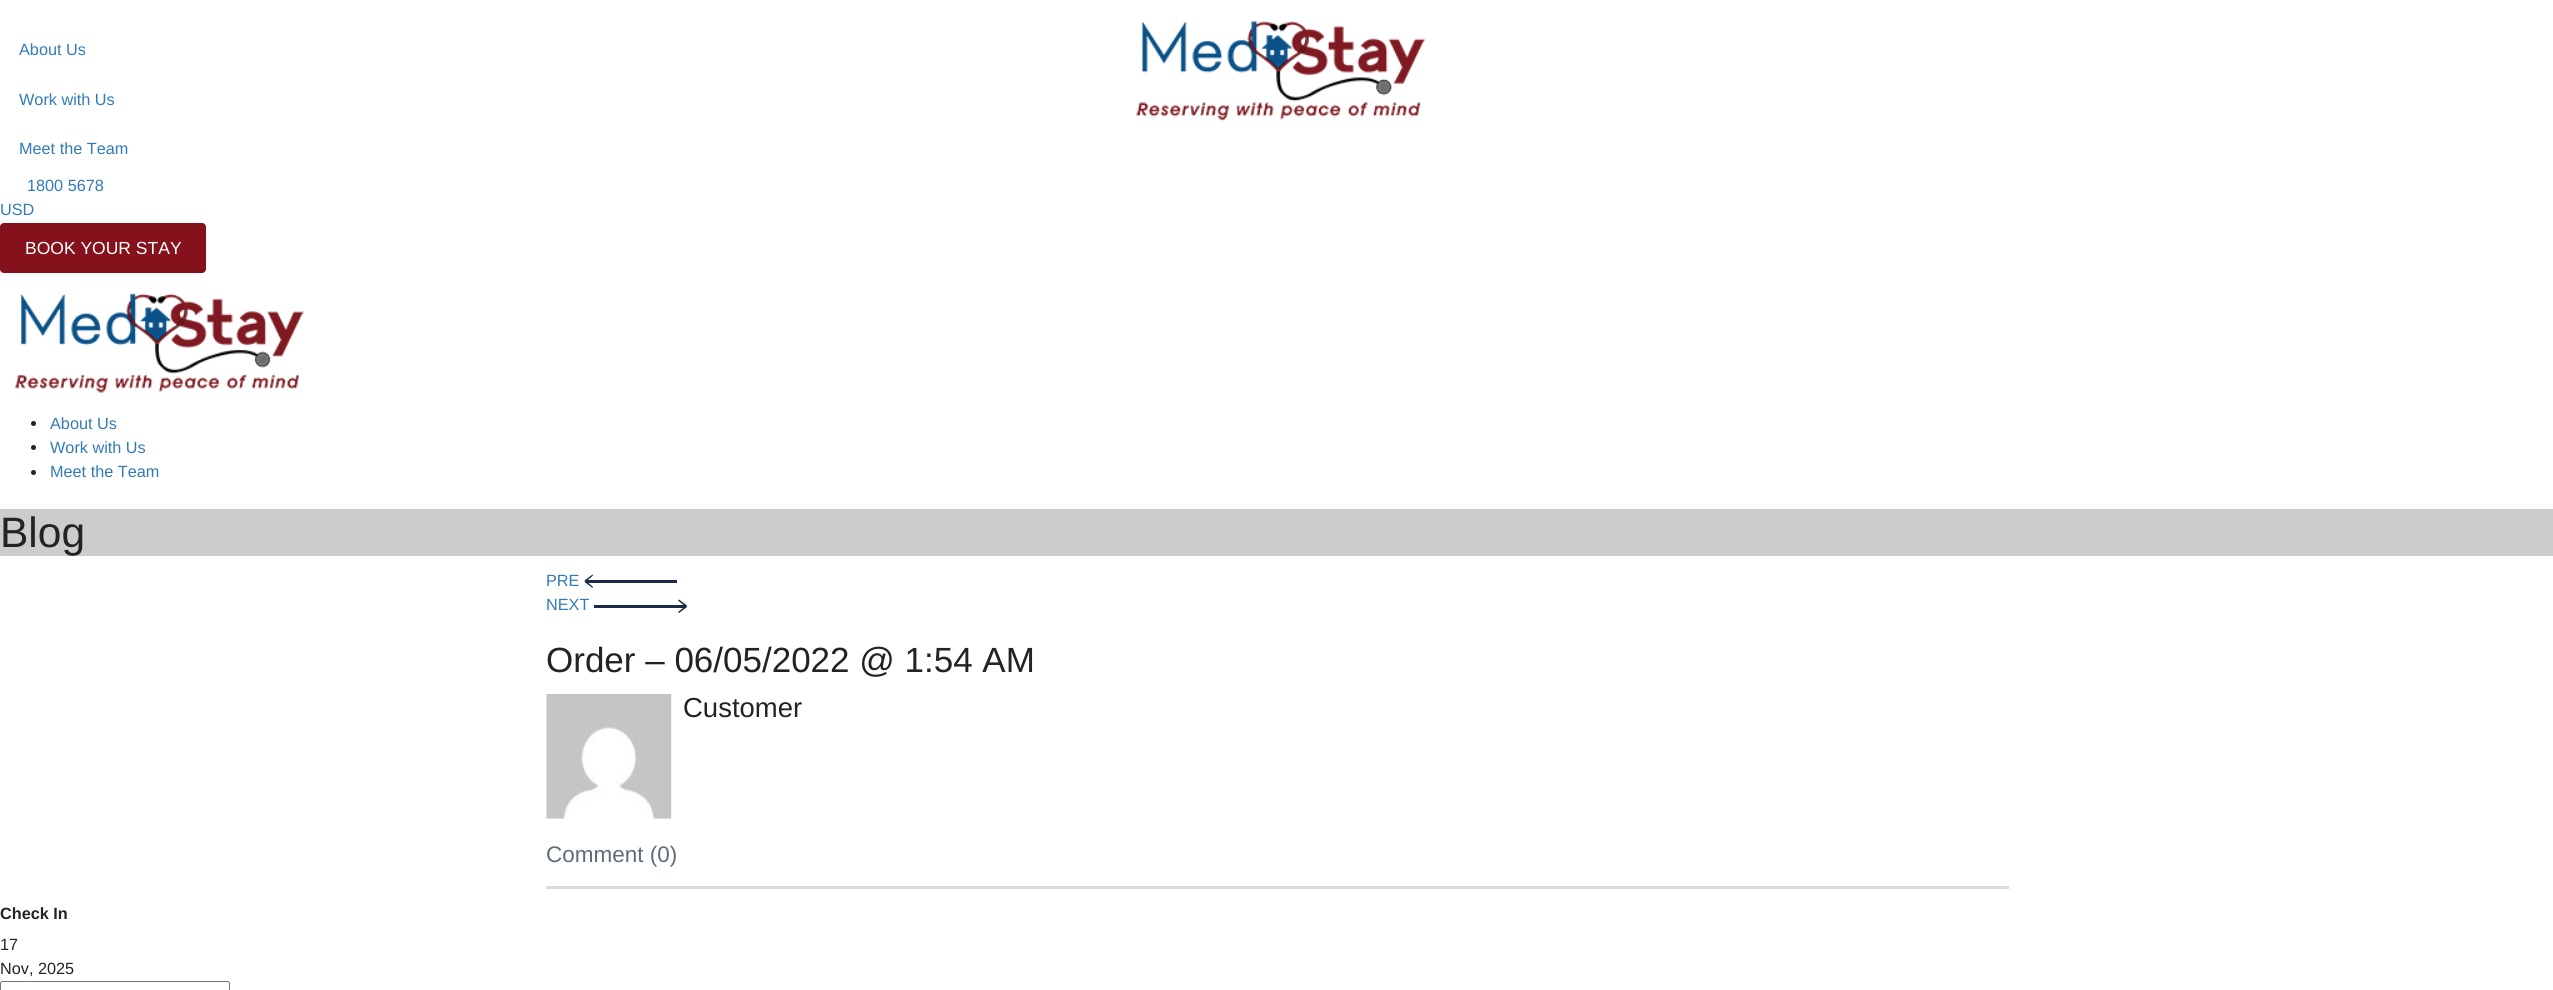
#include <cairo.h>
#include <math.h>
#include <stddef.h>

typedef struct { const char *family; double size; int italic, bold; unsigned color; } style_t;
static cairo_t *ctx;

static void ink(unsigned color) {
    cairo_set_source_rgb(ctx, (color >> 16) / 255.0, (color >> 8 & 255) / 255.0, (color & 255) / 255.0);
}

static void write(double x, double y, const char *s, const style_t *st) {
    cairo_select_font_face(ctx, st->family, st->italic ? CAIRO_FONT_SLANT_ITALIC : CAIRO_FONT_SLANT_NORMAL,
        st->bold ? CAIRO_FONT_WEIGHT_BOLD : CAIRO_FONT_WEIGHT_NORMAL);
    cairo_set_font_size(ctx, st->size);
    ink(st->color);
    cairo_move_to(ctx, x, y);
    cairo_show_text(ctx, s);
}

static void block(double x, double y, double w, double h, unsigned color) {
    ink(color);
    cairo_rectangle(ctx, x, y, w, h);
    cairo_fill(ctx);
}

static void round_path(double x, double y, double w, double h, double r) {
    cairo_new_sub_path(ctx);
    cairo_arc(ctx, x + w - r, y + h - r, r, 0, M_PI / 2);
    cairo_arc(ctx, x + r, y + h - r, r, M_PI / 2, M_PI);
    cairo_arc(ctx, x + r, y + r, r, M_PI, 1.5 * M_PI);
    cairo_arc(ctx, x + w - r, y + r, r, 1.5 * M_PI, 2 * M_PI);
    cairo_close_path(ctx);
}

static void paste(const char *path, double x, double y, double w, double h) {
    cairo_surface_t *image = cairo_image_surface_create_from_png(path);
    cairo_save(ctx);
    cairo_set_source_surface(ctx, image, x, y);
    cairo_rectangle(ctx, x, y, w, h);
    cairo_fill(ctx);
    cairo_restore(ctx);
    cairo_surface_destroy(image);
}

static const style_t s1 = {"Liberation Sans", 16.25, 0, 0, 0x337ab7};
static const style_t s2 = {"Liberation Sans", 17.5, 0, 0, 0xffffff};
static const style_t s3 = {"Liberation Sans", 42.5, 0, 0, 0x232323};
static const style_t s4 = {"Liberation Sans", 35, 0, 0, 0x232323};
static const style_t s5 = {"Liberation Sans", 27.5, 0, 0, 0x232323};
static const style_t s6 = {"Liberation Sans", 22.5, 0, 0, 0x5e6d77};
static const style_t s7 = {"Liberation Sans", 16.25, 0, 1, 0x232323};
static const style_t s8 = {"Liberation Sans", 16.25, 0, 0, 0x232323};

int main(void) {
    cairo_surface_t *surface = cairo_image_surface_create(CAIRO_FORMAT_RGB24, 2553, 990);
    ctx = cairo_create(surface);
    cairo_font_options_t *options = cairo_font_options_create();
    cairo_font_options_set_hint_metrics(options, CAIRO_HINT_METRICS_OFF);
    cairo_font_options_set_hint_style(options, CAIRO_HINT_STYLE_NONE);
    cairo_set_font_options(ctx, options);
    cairo_set_miter_limit(ctx, 4);
    ink(0xffffff);
    cairo_paint(ctx);
    write(19, 55, "About Us", &s1);
    write(19, 105, "Work with Us", &s1);
    write(19, 154, "Meet the Team", &s1);
    write(27, 191, "1800 5678", &s1);
    write(0, 215, "USD", &s1);
    ink(0x84111c);
    round_path(0, 223, 206, 50, 4);
    cairo_fill(ctx);
    write(25, 254, "BOOK YOUR STAY", &s2);
    paste("pic1.png", 1136, 21, 290, 100);
    paste("pic2.png", 14, 293, 290, 100);
    ink(0x232323);
    cairo_arc(ctx, 33.5, 423.5, 2.5, 0, 2 * M_PI);
    cairo_fill(ctx);
    write(50, 429, "About Us", &s1);
    ink(0x232323);
    cairo_new_path(ctx);
    cairo_arc(ctx, 33.5, 447.5, 2.5, 0, 2 * M_PI);
    cairo_fill(ctx);
    write(50, 453, "Work with Us", &s1);
    ink(0x232323);
    cairo_new_path(ctx);
    cairo_arc(ctx, 33.5, 472.5, 2.5, 0, 2 * M_PI);
    cairo_fill(ctx);
    write(50, 477, "Meet the Team", &s1);
    block(0, 509, 2553, 47, 0xcccccc);
    write(0, 547, "Blog", &s3);
    write(546, 586, "PRE", &s1);
    block(586, 580, 91, 3, 0x1a2b48);
    cairo_set_fill_rule(ctx, CAIRO_FILL_RULE_EVEN_ODD);
    cairo_new_path(ctx);
    cairo_move_to(ctx, 592.5, 574.5);
    cairo_line_to(ctx, 593, 575.5);
    cairo_line_to(ctx, 585.5, 582);
    cairo_line_to(ctx, 584.5, 580.5);
    cairo_close_path(ctx);
    cairo_fill(ctx);
    cairo_new_path(ctx);
    cairo_move_to(ctx, 592.5, 588);
    cairo_line_to(ctx, 584.5, 582);
    cairo_line_to(ctx, 585.5, 580.5);
    cairo_line_to(ctx, 593, 587);
    cairo_close_path(ctx);
    cairo_fill(ctx);
    write(546, 610, "NEXT", &s1);
    block(594, 605, 92, 3, 0x1a2b48);
    cairo_new_path(ctx);
    cairo_move_to(ctx, 679, 613);
    cairo_line_to(ctx, 678, 612);
    cairo_line_to(ctx, 686, 605.5);
    cairo_line_to(ctx, 687, 607);
    cairo_close_path(ctx);
    cairo_fill(ctx);
    cairo_new_path(ctx);
    cairo_move_to(ctx, 679, 599.5);
    cairo_line_to(ctx, 687, 605.5);
    cairo_line_to(ctx, 686, 607);
    cairo_line_to(ctx, 678, 600.5);
    cairo_close_path(ctx);
    cairo_fill(ctx);
    write(546, 672, "Order – 06/05/2022 @ 1:54 AM", &s4);
    paste("pic3.png", 546, 694, 126, 125);
    write(683, 717, "Customer", &s5);
    block(546, 886, 1463, 3, 0xd7dce3);
    write(546, 862, "Comment (0)", &s6);
    write(0, 919, "Check In", &s7);
    write(0, 950, "17", &s8);
    write(0, 974, "Nov, 2025", &s8);
    round_path(0.5, 981.5, 229, 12, 2);
    ink(0x767676);
    cairo_set_line_width(ctx, 1);
    cairo_stroke(ctx);
    cairo_surface_write_to_png(surface, "screenshot.png");
    cairo_font_options_destroy(options);
    cairo_destroy(ctx);
    cairo_surface_destroy(surface);
    return 0;
}
